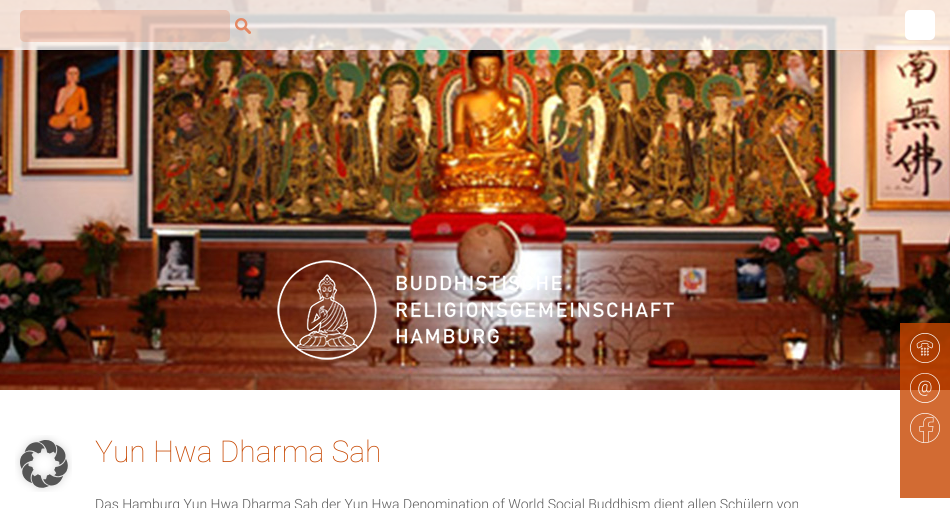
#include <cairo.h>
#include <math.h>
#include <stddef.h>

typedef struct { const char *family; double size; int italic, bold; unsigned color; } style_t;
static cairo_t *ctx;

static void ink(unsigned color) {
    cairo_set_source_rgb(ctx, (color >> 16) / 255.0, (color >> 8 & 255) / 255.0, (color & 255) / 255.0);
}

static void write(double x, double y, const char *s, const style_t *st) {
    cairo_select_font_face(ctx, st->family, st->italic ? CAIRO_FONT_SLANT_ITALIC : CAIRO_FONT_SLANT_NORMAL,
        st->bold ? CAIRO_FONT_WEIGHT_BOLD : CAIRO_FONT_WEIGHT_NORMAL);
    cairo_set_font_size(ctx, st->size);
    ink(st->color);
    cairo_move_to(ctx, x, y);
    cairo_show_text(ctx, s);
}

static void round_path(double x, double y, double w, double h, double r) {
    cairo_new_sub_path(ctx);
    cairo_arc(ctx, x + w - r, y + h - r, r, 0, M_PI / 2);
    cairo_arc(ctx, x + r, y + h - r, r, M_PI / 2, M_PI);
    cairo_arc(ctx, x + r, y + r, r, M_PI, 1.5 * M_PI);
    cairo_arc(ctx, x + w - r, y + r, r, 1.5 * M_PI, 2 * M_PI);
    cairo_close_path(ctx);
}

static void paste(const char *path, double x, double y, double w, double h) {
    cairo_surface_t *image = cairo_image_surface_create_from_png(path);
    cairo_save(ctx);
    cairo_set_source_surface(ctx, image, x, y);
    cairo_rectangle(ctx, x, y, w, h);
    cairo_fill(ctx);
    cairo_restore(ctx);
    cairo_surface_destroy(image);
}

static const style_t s1 = {"Roboto Thin", 30, 0, 0, 0xc74700};
static const style_t s2 = {"Roboto Light", 14, 0, 0, 0x5a5a5a};

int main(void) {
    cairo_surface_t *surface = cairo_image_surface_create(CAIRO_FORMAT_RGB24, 950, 508);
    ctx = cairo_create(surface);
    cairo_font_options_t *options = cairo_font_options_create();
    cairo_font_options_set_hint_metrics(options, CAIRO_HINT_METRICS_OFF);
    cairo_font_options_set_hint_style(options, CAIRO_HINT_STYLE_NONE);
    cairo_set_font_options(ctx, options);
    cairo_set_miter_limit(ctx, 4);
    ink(0xffffff);
    cairo_paint(ctx);
    paste("pic1.png", 0, 0, 950, 390);
    paste("pic2.png", 277, 260, 397, 100);
    cairo_set_source_rgba(ctx, 1, 1, 1, 0.8);
    cairo_rectangle(ctx, 0, 0, 950, 50);
    cairo_fill(ctx);
    cairo_set_source_rgba(ctx, 0.894, 0.533, 0.388, 0.3);
    round_path(20, 10, 210, 32, 5);
    cairo_fill(ctx);
    paste("pic3.png", 235, 18, 16, 16);
    ink(0xffffff);
    round_path(905, 10, 30, 30, 5);
    cairo_fill(ctx);
    paste("pic4.png", 15, 435, 57, 57);
    write(95, 462, "Yun Hwa Dharma Sah", &s1);
    write(95, 509, "Das Hamburg Yun Hwa Dharma Sah der Yun Hwa Denomination of World Social Buddhism dient allen Schülern von", &s2);
    cairo_set_source_rgba(ctx, 0.78, 0.278, 0, 0.8);
    cairo_rectangle(ctx, 900, 323, 50, 175);
    cairo_fill(ctx);
    paste("pic5.png", 910, 333, 30, 30);
    paste("pic6.png", 910, 373, 30, 30);
    paste("pic7.png", 910, 413, 30, 30);
    cairo_surface_write_to_png(surface, "screenshot.png");
    cairo_font_options_destroy(options);
    cairo_destroy(ctx);
    cairo_surface_destroy(surface);
    return 0;
}
